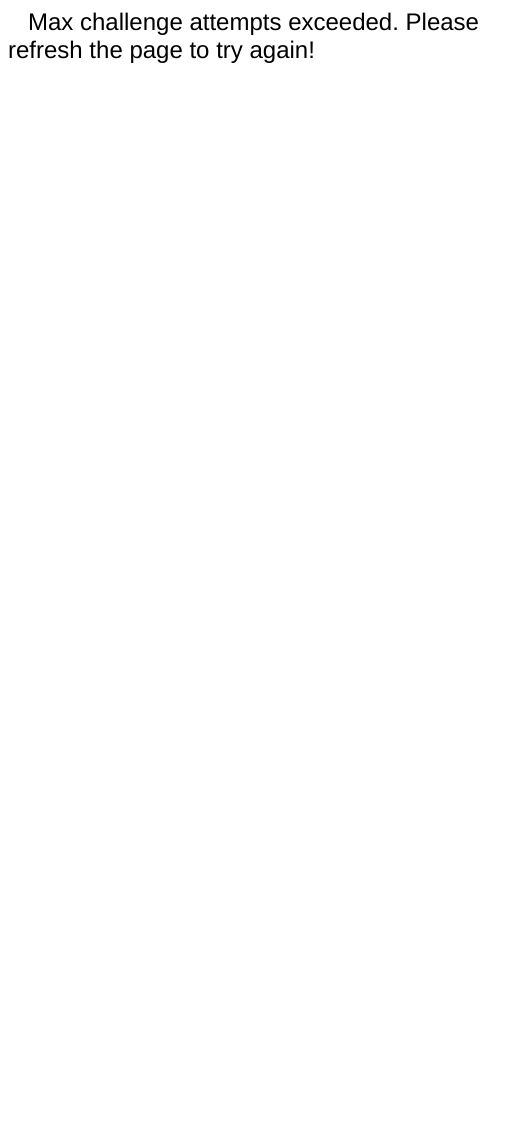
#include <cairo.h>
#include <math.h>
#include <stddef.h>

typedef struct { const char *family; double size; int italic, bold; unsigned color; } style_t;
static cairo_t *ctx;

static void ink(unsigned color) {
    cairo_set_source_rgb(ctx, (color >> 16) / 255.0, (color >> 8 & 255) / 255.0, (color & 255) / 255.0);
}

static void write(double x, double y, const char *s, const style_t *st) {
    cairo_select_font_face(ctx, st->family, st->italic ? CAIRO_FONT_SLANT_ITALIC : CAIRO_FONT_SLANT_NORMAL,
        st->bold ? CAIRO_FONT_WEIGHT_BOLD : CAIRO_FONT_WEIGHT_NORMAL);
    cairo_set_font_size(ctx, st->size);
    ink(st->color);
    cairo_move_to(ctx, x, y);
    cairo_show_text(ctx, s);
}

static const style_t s1 = {"Liberation Sans", 24, 0, 0, 0x000000};

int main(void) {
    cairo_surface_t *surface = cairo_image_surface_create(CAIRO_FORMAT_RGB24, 505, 1133);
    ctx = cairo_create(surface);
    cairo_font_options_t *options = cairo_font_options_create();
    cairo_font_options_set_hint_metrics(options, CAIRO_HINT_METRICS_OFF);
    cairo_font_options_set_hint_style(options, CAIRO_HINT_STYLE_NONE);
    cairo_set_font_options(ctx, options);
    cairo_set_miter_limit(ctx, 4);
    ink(0xffffff);
    cairo_paint(ctx);
    write(28, 30, "Max challenge attempts exceeded. Please", &s1);
    write(8, 58, "refresh the page to try again!", &s1);
    cairo_surface_write_to_png(surface, "screenshot.png");
    cairo_font_options_destroy(options);
    cairo_destroy(ctx);
    cairo_surface_destroy(surface);
    return 0;
}
